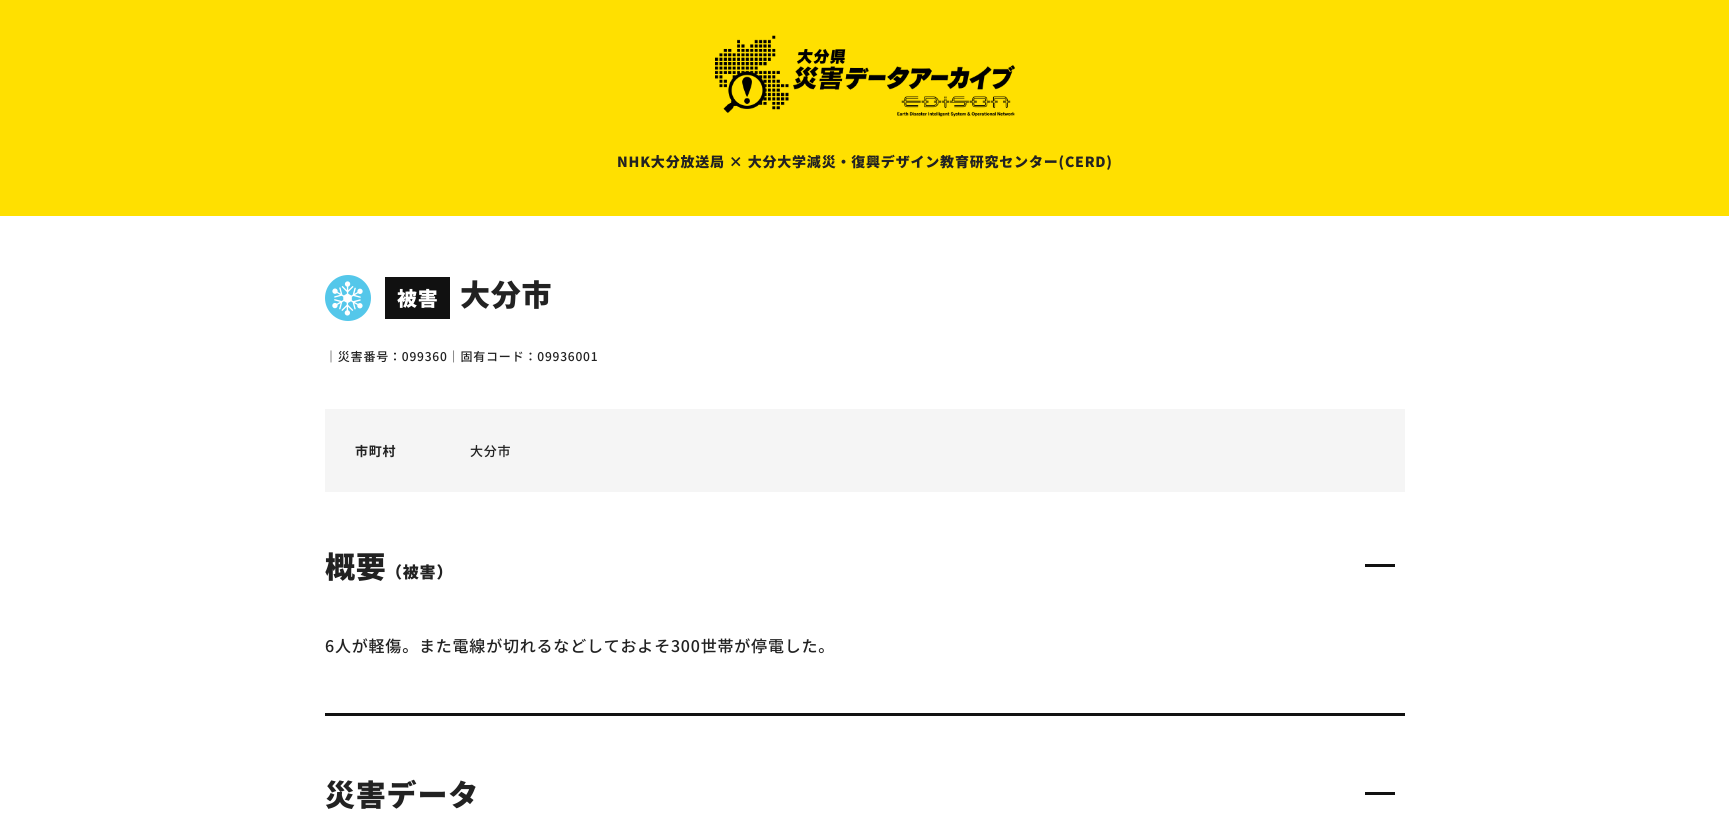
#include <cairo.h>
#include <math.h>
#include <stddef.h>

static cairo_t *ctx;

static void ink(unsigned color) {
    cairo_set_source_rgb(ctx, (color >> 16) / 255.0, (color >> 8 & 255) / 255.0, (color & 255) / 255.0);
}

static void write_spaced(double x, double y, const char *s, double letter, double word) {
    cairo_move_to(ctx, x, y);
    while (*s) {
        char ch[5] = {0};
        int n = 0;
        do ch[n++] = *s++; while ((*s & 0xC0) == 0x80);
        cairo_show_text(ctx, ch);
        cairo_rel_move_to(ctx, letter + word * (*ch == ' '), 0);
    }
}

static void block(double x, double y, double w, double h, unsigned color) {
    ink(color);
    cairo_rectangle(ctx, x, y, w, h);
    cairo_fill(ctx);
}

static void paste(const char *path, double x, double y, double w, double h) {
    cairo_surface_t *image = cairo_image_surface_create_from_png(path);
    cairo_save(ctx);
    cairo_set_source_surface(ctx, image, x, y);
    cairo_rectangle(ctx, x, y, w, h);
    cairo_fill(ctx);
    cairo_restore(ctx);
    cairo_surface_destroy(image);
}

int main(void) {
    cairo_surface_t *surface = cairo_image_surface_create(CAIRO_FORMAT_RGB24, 1729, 831);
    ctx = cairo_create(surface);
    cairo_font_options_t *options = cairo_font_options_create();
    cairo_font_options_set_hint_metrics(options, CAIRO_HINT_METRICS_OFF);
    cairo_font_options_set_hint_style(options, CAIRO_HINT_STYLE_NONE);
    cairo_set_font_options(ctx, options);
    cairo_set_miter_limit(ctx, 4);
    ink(0xffffff);
    cairo_paint(ctx);
    block(0, 0, 1729, 216, 0xffe000);
    paste("pic1.png", 715, 35, 300, 82);
    cairo_select_font_face(ctx, "Noto Sans JP Black", CAIRO_FONT_SLANT_NORMAL, CAIRO_FONT_WEIGHT_NORMAL);
    cairo_set_font_size(ctx, 14);
    ink(0x222222);
    write_spaced(617, 167, "NHK大分放送局 × 大分大学減災・復興デザイン教育研究センター(CERD)", 0.8, 0);
    block(325, 713, 1080, 3, 0x111111);
    ink(0x54c7ea);
    cairo_new_path(ctx);
    cairo_arc(ctx, 348, 298, 23, 0, 2 * M_PI);
    cairo_fill(ctx);
    paste("pic2.png", 332, 281, 31, 35);
    block(385, 277, 65, 42, 0x111111);
    cairo_set_font_size(ctx, 20);
    ink(0xffffff);
    write_spaced(397, 306, "被害", 0.8, 0);
    cairo_set_font_size(ctx, 30);
    ink(0x222222);
    write_spaced(460, 306, "大分市", 0.8, 0);
    cairo_select_font_face(ctx, "Noto Sans JP Medium", CAIRO_FONT_SLANT_NORMAL, CAIRO_FONT_WEIGHT_NORMAL);
    cairo_set_font_size(ctx, 12);
    write_spaced(325, 361, "｜災害番号：099360｜固有コード：09936001", 0.8, 0);
    block(325, 409, 1080, 83, 0xf5f5f5);
    cairo_select_font_face(ctx, "Noto Sans JP", CAIRO_FONT_SLANT_NORMAL, CAIRO_FONT_WEIGHT_BOLD);
    cairo_set_font_size(ctx, 13);
    ink(0x222222);
    write_spaced(355, 456, "市町村", 0.8, 0);
    cairo_select_font_face(ctx, "Noto Sans JP Medium", CAIRO_FONT_SLANT_NORMAL, CAIRO_FONT_WEIGHT_NORMAL);
    write_spaced(470, 456, "大分市", 0.8, 0);
    cairo_select_font_face(ctx, "Noto Sans JP Black", CAIRO_FONT_SLANT_NORMAL, CAIRO_FONT_WEIGHT_NORMAL);
    cairo_set_font_size(ctx, 30);
    write_spaced(325, 578, "概要", 0.8, 0);
    cairo_set_font_size(ctx, 16);
    write_spaced(386, 578, "（被害）", 0.8, 0);
    block(1365, 564, 30, 3, 0x111111);
    cairo_select_font_face(ctx, "Noto Sans JP Medium", CAIRO_FONT_SLANT_NORMAL, CAIRO_FONT_WEIGHT_NORMAL);
    ink(0x222222);
    write_spaced(325, 652, "6人が軽傷。また電線が切れるなどしておよそ300世帯が停電した。", 0.8, 0);
    cairo_select_font_face(ctx, "Noto Sans JP Black", CAIRO_FONT_SLANT_NORMAL, CAIRO_FONT_WEIGHT_NORMAL);
    cairo_set_font_size(ctx, 30);
    write_spaced(325, 806, "災害データ", 0.8, 0);
    block(1365, 792, 30, 3, 0x111111);
    cairo_surface_write_to_png(surface, "screenshot.png");
    cairo_font_options_destroy(options);
    cairo_destroy(ctx);
    cairo_surface_destroy(surface);
    return 0;
}
